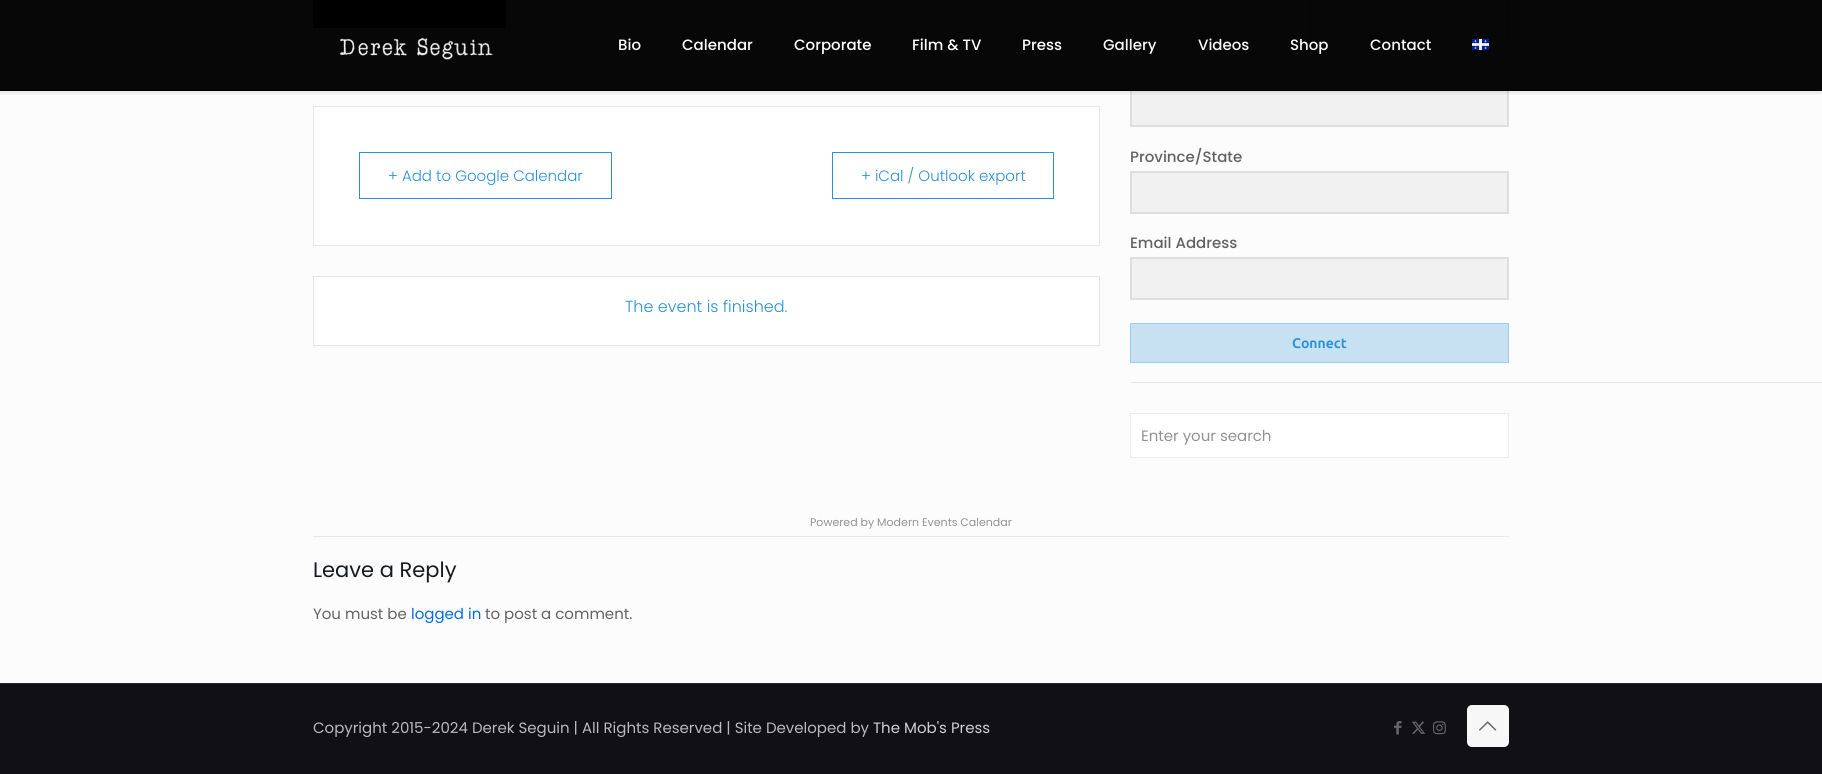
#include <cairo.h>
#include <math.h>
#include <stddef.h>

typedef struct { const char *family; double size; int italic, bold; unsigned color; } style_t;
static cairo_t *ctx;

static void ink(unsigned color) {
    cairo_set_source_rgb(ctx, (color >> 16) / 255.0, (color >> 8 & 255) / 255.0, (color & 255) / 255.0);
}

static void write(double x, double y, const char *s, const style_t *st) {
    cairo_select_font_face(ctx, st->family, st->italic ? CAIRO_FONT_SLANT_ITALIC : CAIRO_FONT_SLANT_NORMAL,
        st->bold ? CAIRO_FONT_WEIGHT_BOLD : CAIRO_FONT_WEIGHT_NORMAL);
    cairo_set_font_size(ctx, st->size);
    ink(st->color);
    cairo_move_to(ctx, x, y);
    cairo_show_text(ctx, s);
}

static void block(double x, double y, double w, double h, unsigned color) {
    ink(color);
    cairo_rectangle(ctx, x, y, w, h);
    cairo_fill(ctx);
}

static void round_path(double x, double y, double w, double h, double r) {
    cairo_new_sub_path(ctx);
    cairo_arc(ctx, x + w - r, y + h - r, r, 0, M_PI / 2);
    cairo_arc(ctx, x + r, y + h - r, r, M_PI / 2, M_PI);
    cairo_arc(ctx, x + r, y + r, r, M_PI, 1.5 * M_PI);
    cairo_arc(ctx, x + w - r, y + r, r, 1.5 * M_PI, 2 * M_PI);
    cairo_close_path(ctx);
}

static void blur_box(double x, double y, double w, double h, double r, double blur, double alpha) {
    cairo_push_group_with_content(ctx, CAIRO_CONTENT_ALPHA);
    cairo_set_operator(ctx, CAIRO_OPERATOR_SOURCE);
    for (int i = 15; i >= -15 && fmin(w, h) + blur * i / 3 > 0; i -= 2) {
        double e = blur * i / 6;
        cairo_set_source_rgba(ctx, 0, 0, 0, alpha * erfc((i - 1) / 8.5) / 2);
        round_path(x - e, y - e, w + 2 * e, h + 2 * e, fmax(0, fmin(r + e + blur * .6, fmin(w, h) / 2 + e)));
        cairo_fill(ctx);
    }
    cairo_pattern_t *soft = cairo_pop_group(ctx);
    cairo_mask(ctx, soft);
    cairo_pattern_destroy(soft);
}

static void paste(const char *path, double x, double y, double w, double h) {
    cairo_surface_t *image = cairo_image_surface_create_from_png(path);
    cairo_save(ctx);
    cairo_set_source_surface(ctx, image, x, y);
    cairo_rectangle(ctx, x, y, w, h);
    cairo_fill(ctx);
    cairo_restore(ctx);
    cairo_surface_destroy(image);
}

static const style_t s1 = {"Poppins Medium", 15, 0, 0, 0xffffff};
static const style_t s2 = {"Poppins Medium", 15, 0, 0, 0xf8f8f8};
static const style_t s3 = {"Poppins Light", 15, 0, 0, 0x2991d6};
static const style_t s4 = {"Poppins Light", 16, 0, 0, 0x2991d6};
static const style_t s5 = {"Poppins Medium", 15, 0, 0, 0x626262};
static const style_t s6 = {"Ubuntu", 14, 0, 1, 0x2991d6};
static const style_t s7 = {"Poppins", 15, 0, 0, 0x919293};
static const style_t s8 = {"Poppins", 11, 0, 0, 0x919293};
static const style_t s9 = {"Poppins", 21, 0, 0, 0x161922};
static const style_t s10 = {"Poppins", 15, 0, 0, 0x626262};
static const style_t s11 = {"Poppins", 15, 0, 0, 0x006edf};
static const style_t s12 = {"Poppins", 15, 0, 0, 0xbababa};
static const style_t s13 = {"Poppins", 15, 0, 0, 0xd1d1d1};

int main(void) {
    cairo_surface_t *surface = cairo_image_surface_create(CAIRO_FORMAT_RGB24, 1822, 774);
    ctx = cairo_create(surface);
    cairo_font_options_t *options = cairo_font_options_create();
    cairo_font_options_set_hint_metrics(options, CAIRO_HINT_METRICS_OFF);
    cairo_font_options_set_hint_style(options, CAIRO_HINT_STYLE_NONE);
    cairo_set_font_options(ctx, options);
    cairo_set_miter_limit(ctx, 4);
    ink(0xfcfcfc);
    cairo_paint(ctx);
    paste("pic3.png", 313, 0, 193, 28);
    ink(0xf1f1f1);
    cairo_rectangle(ctx, 1131, -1, 180, 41);
    cairo_fill_preserve(ctx);
    ink(0xdedede);
    cairo_stroke(ctx);
    ink(0xf1f1f1);
    cairo_rectangle(ctx, 1328, -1, 180, 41);
    cairo_fill_preserve(ctx);
    ink(0xdedede);
    cairo_stroke(ctx);
    ink(0xf1f1f1);
    cairo_rectangle(ctx, 1131, 86, 377, 40);
    cairo_fill_preserve(ctx);
    ink(0xdedede);
    cairo_stroke(ctx);
    cairo_save(ctx);
    cairo_rectangle(ctx, 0, 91, 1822, 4);
    cairo_clip(ctx);
    ink(0x000000);
    blur_box(0, 2, 1822, 91, 0, 2.5, 0.1);
    cairo_restore(ctx);
    cairo_set_source_rgba(ctx, 0, 0, 0, 0.97);
    cairo_rectangle(ctx, 0, 0, 1822, 90);
    cairo_fill(ctx);
    block(0, 90, 1822, 1, 0x000000);
    paste("pic1.png", 340, 37, 153, 23);
    write(618, 50, "Bio", &s1);
    write(682, 50, "Calendar", &s1);
    write(794, 50, "Corporate", &s1);
    write(912, 50, "Film & TV", &s1);
    write(1022, 50, "Press", &s1);
    write(1103, 50, "Gallery", &s2);
    write(1198, 50, "Videos", &s2);
    write(1290, 50, "Shop", &s2);
    write(1370, 50, "Contact", &s2);
    paste("pic2.png", 1472, 39, 17, 11);
    ink(0xffffff);
    cairo_rectangle(ctx, 313.5, 106.5, 786, 139);
    cairo_fill_preserve(ctx);
    ink(0xe6e7e8);
    cairo_set_line_width(ctx, 1);
    cairo_stroke(ctx);
    cairo_rectangle(ctx, 359.5, 152.5, 252, 46);
    ink(0x2991d6);
    cairo_stroke(ctx);
    write(388, 181, "+ Add to Google Calendar", &s3);
    cairo_rectangle(ctx, 832.5, 152.5, 221, 46);
    cairo_stroke(ctx);
    write(861, 181, "+ iCal / Outlook export", &s3);
    block(313, 346, 787, 2, 0xf8f8f8);
    ink(0xffffff);
    cairo_rectangle(ctx, 313.5, 276.5, 786, 69);
    cairo_fill_preserve(ctx);
    ink(0xe6e6e6);
    cairo_stroke(ctx);
    write(625, 312, "The event is finished.", &s4);
    write(1130, 162, "Province/State", &s5);
    ink(0xf1f1f1);
    cairo_rectangle(ctx, 1131, 172, 377, 41);
    cairo_fill_preserve(ctx);
    ink(0xdedede);
    cairo_set_line_width(ctx, 2);
    cairo_stroke(ctx);
    write(1130, 248, "Email Address", &s5);
    ink(0xf1f1f1);
    cairo_rectangle(ctx, 1131, 258, 377, 41);
    cairo_fill_preserve(ctx);
    ink(0xdedede);
    cairo_stroke(ctx);
    ink(0xc7e1f3);
    cairo_rectangle(ctx, 1130.5, 323.5, 378, 39);
    cairo_fill_preserve(ctx);
    ink(0xa0cdec);
    cairo_set_line_width(ctx, 1);
    cairo_stroke(ctx);
    write(1292, 348, "Connect", &s6);
    block(1130, 382, 692, 1, 0xe8e8e8);
    ink(0xffffff);
    cairo_rectangle(ctx, 1130.5, 413.5, 378, 44);
    cairo_fill_preserve(ctx);
    ink(0xebebeb);
    cairo_stroke(ctx);
    write(1141, 441, "Enter your search", &s7);
    write(810, 526, "Powered by Modern Events Calendar", &s8);
    block(313, 536, 1196, 1, 0xe8e8e8);
    write(313, 577, "Leave a Reply", &s9);
    write(313, 619, "You must be", &s10);
    write(411, 619, "logged in", &s11);
    write(485, 619, "to post a comment.", &s10);
    block(0, 684, 1822, 90, 0x101015);
    block(0, 683, 1822, 1, 0x28282c);
    write(313, 733, "Copyright 2015-2024 Derek Seguin | All Rights Reserved | Site Developed by", &s12);
    write(873, 733, "The Mob's Press", &s13);
    paste("pic4.png", 1394, 721, 8, 14);
    paste("pic5.png", 1412, 721, 14, 13);
    paste("pic6.png", 1433, 721, 13, 14);
    ink(0xf7f7f7);
    round_path(1467, 705, 42, 42, 5);
    cairo_fill(ctx);
    paste("pic7.png", 1479, 721, 18, 10);
    cairo_surface_write_to_png(surface, "screenshot.png");
    cairo_font_options_destroy(options);
    cairo_destroy(ctx);
    cairo_surface_destroy(surface);
    return 0;
}
